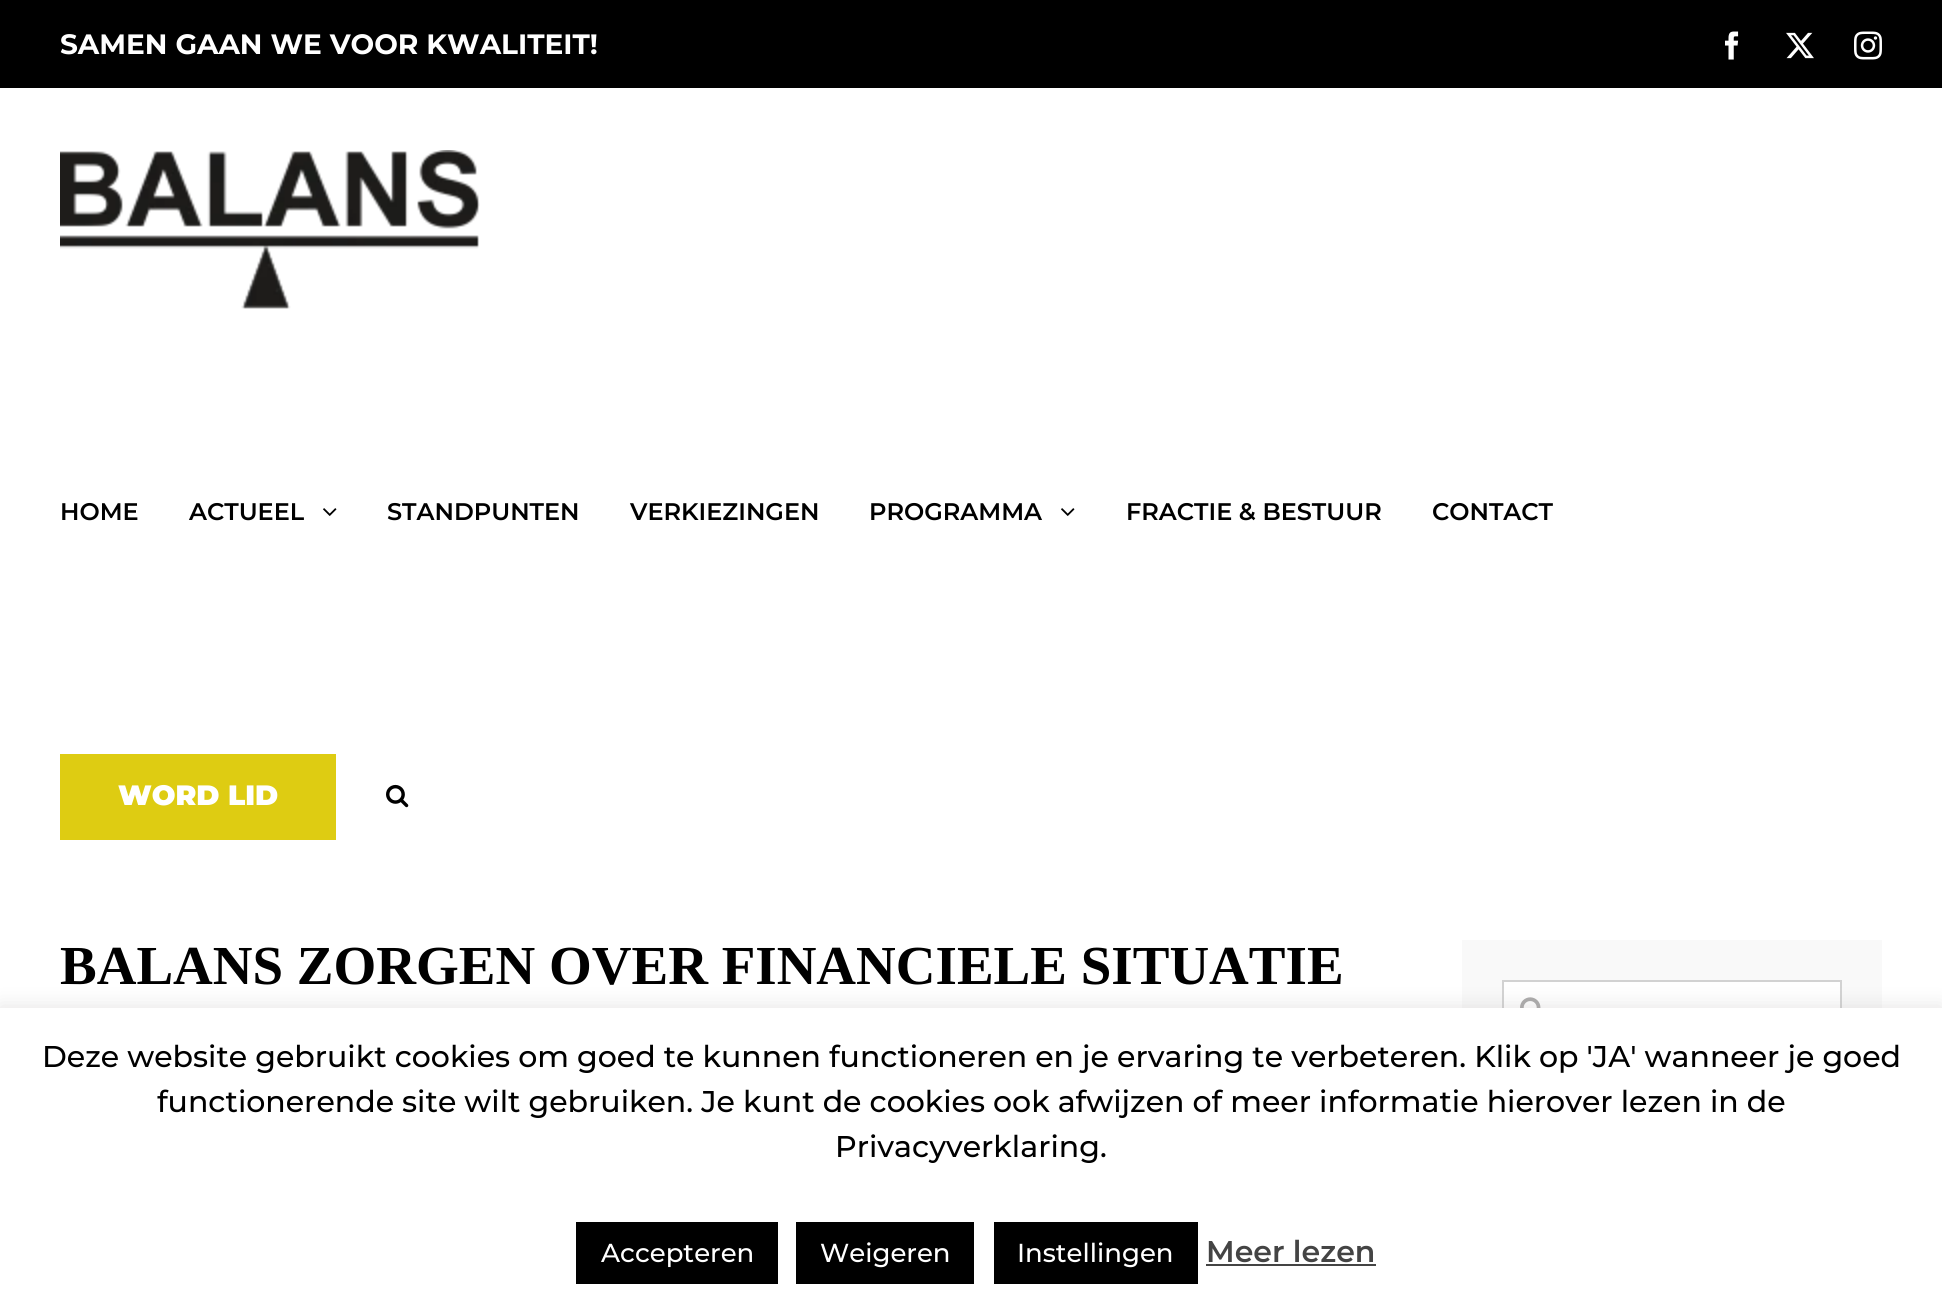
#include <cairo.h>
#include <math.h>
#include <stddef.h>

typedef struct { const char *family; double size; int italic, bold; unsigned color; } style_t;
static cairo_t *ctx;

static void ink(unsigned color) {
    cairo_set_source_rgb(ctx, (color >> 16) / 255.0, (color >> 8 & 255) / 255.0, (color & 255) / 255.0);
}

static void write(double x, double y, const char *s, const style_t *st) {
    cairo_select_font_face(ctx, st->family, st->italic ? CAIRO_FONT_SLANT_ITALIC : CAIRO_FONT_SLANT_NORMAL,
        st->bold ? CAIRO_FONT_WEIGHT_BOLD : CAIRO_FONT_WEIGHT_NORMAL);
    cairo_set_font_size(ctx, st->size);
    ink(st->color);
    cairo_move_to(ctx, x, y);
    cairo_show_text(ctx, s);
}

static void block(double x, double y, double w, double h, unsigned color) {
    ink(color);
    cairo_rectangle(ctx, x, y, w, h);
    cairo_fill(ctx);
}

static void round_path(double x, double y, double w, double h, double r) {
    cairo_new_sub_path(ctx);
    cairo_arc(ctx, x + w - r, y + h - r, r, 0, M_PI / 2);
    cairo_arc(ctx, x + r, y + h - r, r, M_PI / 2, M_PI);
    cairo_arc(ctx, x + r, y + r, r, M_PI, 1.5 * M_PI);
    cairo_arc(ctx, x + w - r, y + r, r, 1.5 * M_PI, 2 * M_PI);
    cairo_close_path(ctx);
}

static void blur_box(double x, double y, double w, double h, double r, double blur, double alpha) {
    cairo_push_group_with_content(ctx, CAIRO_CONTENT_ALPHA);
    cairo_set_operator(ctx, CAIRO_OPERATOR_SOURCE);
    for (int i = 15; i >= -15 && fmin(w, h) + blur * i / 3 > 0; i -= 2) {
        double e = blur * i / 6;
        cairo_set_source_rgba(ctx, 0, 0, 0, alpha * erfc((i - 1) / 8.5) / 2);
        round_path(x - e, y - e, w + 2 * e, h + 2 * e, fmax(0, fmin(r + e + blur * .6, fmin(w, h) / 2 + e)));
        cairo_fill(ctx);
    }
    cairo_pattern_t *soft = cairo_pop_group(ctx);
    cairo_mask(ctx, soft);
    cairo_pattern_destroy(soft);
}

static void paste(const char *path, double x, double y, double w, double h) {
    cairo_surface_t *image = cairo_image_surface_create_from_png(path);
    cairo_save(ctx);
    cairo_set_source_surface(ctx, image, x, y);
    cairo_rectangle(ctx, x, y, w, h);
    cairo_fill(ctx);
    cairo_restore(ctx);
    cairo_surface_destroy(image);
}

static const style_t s1 = {"Montserrat", 28, 0, 1, 0xffffff};
static const style_t s2 = {"Montserrat SemiBold", 24, 0, 0, 0x000000};
static const style_t s3 = {"Montserrat Black", 28, 0, 0, 0xffffff};
static const style_t s4 = {"Liberation Serif", 55, 0, 1, 0x000000};
static const style_t s5 = {"Montserrat Medium", 30, 0, 0, 0x000000};
static const style_t s6 = {"Montserrat Medium", 26, 0, 0, 0xffffff};
static const style_t s7 = {"Montserrat SemiBold", 30, 0, 0, 0x444444};

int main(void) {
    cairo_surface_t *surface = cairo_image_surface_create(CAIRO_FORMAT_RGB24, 1942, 1308);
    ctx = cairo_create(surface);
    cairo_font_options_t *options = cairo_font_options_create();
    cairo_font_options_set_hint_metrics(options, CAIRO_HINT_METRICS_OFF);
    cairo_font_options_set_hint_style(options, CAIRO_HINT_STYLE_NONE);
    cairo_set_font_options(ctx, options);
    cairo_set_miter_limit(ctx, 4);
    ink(0xffffff);
    cairo_paint(ctx);
    block(0, 0, 1942, 88, 0x000000);
    write(60, 54, "SAMEN GAAN WE VOOR KWALITEIT!", &s1);
    paste("pic1.png", 1725, 31, 14, 29);
    paste("pic2.png", 1786, 32, 28, 27);
    paste("pic3.png", 1854, 31, 28, 29);
    paste("pic4.png", 60, 150, 420, 159);
    write(60, 520, "HOME", &s2);
    write(189, 520, "ACTUEEL", &s2);
    paste("pic5.png", 323, 508, 14, 8);
    write(387, 520, "STANDPUNTEN", &s2);
    write(630, 520, "VERKIEZINGEN", &s2);
    write(869, 520, "PROGRAMMA", &s2);
    paste("pic5.png", 1061, 508, 14, 8);
    write(1126, 520, "FRACTIE & BESTUUR", &s2);
    write(1432, 520, "CONTACT", &s2);
    block(60, 754, 276, 86, 0xdecc12);
    write(118, 805, "WORD LID", &s3);
    paste("pic6.png", 386, 784, 23, 24);
    write(60, 984, "BALANS ZORGEN OVER FINANCIELE SITUATIE", &s4);
    block(1462, 940, 420, 68, 0xf9f9f9);
    block(1504, 982, 336, 26, 0xffffff);
    cairo_rectangle(ctx, 1503, 981, 338, 56);
    ink(0xd2d2d2);
    cairo_stroke(ctx);
    paste("pic7.png", 1520, 997, 21, 11);
    ink(0xacabab);
    blur_box(0, 1006, 1942, 300, 0, 10, 0.3);
    block(0, 1008, 1942, 300, 0xffffff);
    write(42, 1067, "Deze website gebruikt cookies om goed te kunnen functioneren en je ervaring te verbeteren. Klik op 'JA' wanneer je goed", &s5);
    write(157, 1112, "functionerende site wilt gebruiken. Je kunt de cookies ook afwijzen of meer informatie hierover lezen in de", &s5);
    write(835, 1157, "Privacyverklaring.", &s5);
    block(576, 1222, 202, 62, 0x000000);
    write(601, 1262, "Accepteren", &s6);
    block(796, 1222, 178, 62, 0x000000);
    write(820, 1262, "Weigeren", &s6);
    block(994, 1222, 204, 62, 0x000000);
    write(1017, 1262, "Instellingen", &s6);
    write(1206, 1262, "Meer lezen", &s7);
    block(1206, 1264, 170, 2, 0x444444);
    cairo_surface_write_to_png(surface, "screenshot.png");
    cairo_font_options_destroy(options);
    cairo_destroy(ctx);
    cairo_surface_destroy(surface);
    return 0;
}
